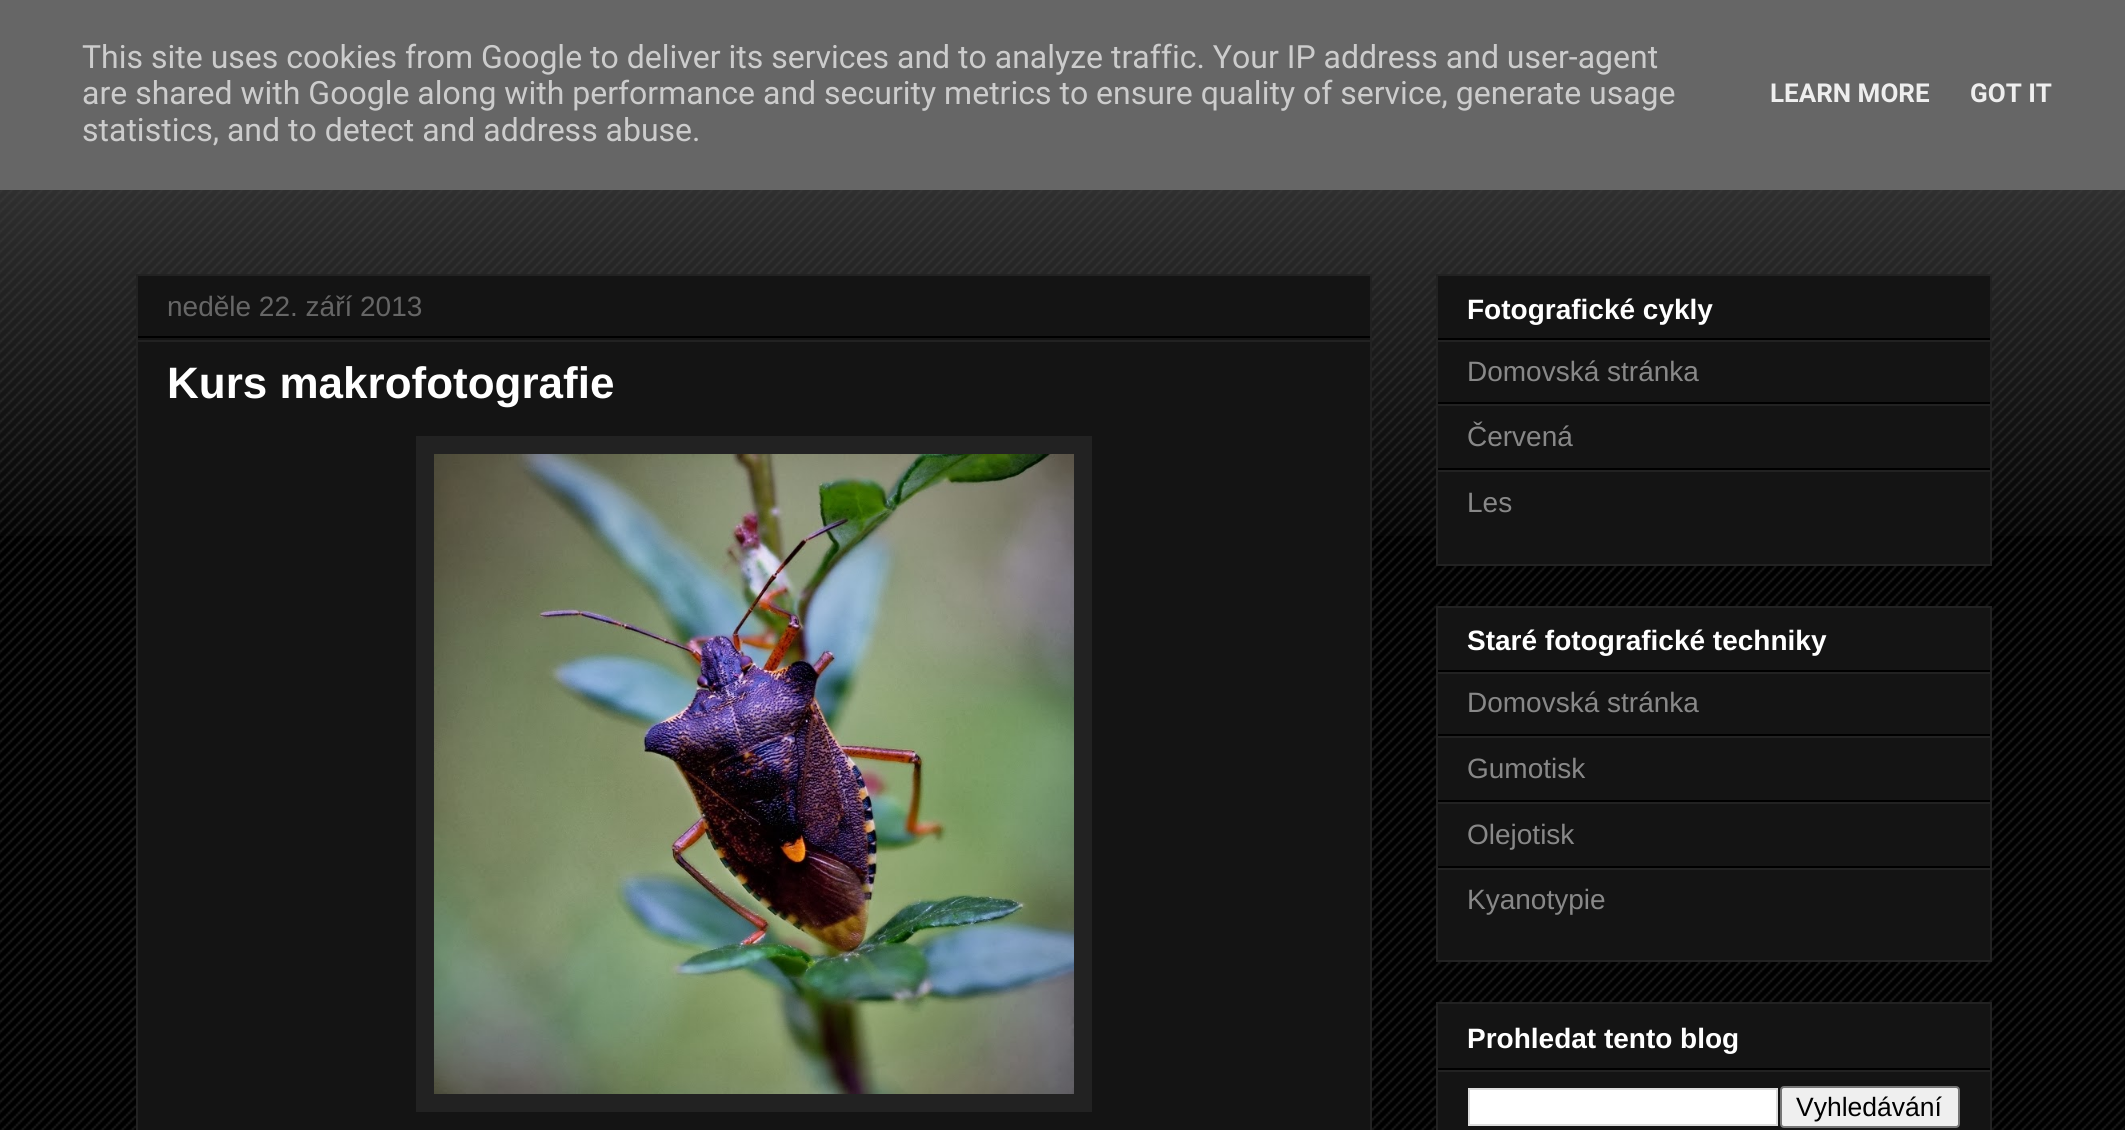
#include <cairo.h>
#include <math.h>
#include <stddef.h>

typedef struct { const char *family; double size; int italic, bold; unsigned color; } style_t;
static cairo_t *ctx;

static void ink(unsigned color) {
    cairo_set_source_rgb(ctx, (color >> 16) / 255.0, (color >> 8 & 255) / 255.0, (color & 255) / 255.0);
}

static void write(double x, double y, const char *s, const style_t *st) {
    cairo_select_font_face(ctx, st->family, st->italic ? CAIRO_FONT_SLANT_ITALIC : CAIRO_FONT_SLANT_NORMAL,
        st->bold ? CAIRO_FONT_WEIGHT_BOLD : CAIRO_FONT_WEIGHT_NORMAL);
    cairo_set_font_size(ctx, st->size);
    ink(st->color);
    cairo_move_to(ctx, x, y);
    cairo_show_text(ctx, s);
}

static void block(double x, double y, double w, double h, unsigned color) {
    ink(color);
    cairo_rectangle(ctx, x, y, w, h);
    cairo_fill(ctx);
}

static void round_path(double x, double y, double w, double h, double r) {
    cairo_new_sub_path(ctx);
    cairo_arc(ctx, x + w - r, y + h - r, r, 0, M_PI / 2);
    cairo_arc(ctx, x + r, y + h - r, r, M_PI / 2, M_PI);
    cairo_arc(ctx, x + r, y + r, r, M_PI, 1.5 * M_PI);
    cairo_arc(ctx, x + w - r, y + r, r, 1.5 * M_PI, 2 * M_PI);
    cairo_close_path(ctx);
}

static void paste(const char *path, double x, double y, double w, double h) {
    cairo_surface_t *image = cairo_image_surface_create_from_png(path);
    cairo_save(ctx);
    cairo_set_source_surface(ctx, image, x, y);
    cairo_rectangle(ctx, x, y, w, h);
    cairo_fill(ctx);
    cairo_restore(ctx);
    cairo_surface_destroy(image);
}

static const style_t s1 = {"Roboto", 32, 0, 0, 0xcccccc};
static const style_t s2 = {"Roboto", 26, 0, 1, 0xeeeeee};
static const style_t s3 = {"Liberation Sans", 28, 0, 0, 0x666666};
static const style_t s4 = {"Liberation Sans", 44, 0, 1, 0xffffff};
static const style_t s5 = {"Liberation Sans", 28, 0, 1, 0xffffff};
static const style_t s6 = {"Liberation Sans", 28, 0, 0, 0x888888};
static const style_t s7 = {"Liberation Sans", 26.5, 0, 0, 0x000000};

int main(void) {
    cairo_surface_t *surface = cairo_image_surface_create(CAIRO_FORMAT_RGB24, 2125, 1130);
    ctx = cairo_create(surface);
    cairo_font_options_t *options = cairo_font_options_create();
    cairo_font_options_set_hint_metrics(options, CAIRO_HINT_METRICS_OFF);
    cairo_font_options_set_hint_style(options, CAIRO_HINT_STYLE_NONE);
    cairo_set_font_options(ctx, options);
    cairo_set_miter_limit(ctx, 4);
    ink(0x000000);
    cairo_paint(ctx);
    paste("pic1.png", 0, 190, 2125, 940);
    block(0, 0, 2125, 190, 0x666666);
    write(82, 68, "This site uses cookies from Google to deliver its services and to analyze traffic. Your IP address and user-agent", &s1);
    write(82, 104, "are shared with Google along with performance and security metrics to ensure quality of service, generate usage", &s1);
    write(82, 141, "statistics, and to detect and address abuse.", &s1);
    write(1770, 102, "LEARN MORE", &s2);
    write(1970, 102, "GOT IT", &s2);
    paste("pic2.png", 0, 190, 2125, 346);
    ink(0x141414);
    cairo_rectangle(ctx, 137, 275, 1234, 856);
    cairo_fill_preserve(ctx);
    ink(0x222222);
    cairo_stroke(ctx);
    block(138, 336, 1232, 2, 0x000000);
    write(167, 316, "neděle 22. září 2013", &s3);
    block(138, 340, 1232, 2, 0x222222);
    write(167, 398, "Kurs makrofotografie", &s4);
    block(416, 436, 676, 676, 0x222222);
    paste("pic3.png", 434, 454, 640, 640);
    ink(0x141414);
    cairo_rectangle(ctx, 1437, 275, 554, 290);
    cairo_fill_preserve(ctx);
    ink(0x222222);
    cairo_stroke(ctx);
    block(1438, 338, 552, 2, 0x000000);
    write(1467, 319, "Fotografické cykly", &s5);
    block(1438, 340, 552, 2, 0x222222);
    block(1438, 402, 552, 2, 0x000000);
    write(1467, 381, "Domovská stránka", &s6);
    block(1438, 404, 552, 2, 0x222222);
    block(1438, 468, 552, 2, 0x000000);
    write(1467, 446, "Červená", &s6);
    block(1438, 470, 552, 2, 0x222222);
    write(1467, 512, "Les", &s6);
    ink(0x141414);
    cairo_rectangle(ctx, 1437, 607, 554, 354);
    cairo_fill_preserve(ctx);
    ink(0x222222);
    cairo_stroke(ctx);
    block(1438, 670, 552, 2, 0x000000);
    write(1467, 650, "Staré fotografické techniky", &s5);
    block(1438, 672, 552, 2, 0x222222);
    block(1438, 734, 552, 2, 0x000000);
    write(1467, 712, "Domovská stránka", &s6);
    block(1438, 736, 552, 2, 0x222222);
    block(1438, 800, 552, 2, 0x000000);
    write(1467, 778, "Gumotisk", &s6);
    block(1438, 802, 552, 2, 0x222222);
    block(1438, 866, 552, 2, 0x000000);
    write(1467, 844, "Olejotisk", &s6);
    block(1438, 868, 552, 2, 0x222222);
    write(1467, 909, "Kyanotypie", &s6);
    ink(0x141414);
    cairo_rectangle(ctx, 1437, 1003, 554, 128);
    cairo_fill_preserve(ctx);
    ink(0x222222);
    cairo_stroke(ctx);
    block(1438, 1068, 552, 2, 0x000000);
    write(1467, 1048, "Prohledat tento blog", &s5);
    block(1438, 1070, 552, 2, 0x222222);
    ink(0xffffff);
    cairo_rectangle(ctx, 1469, 1089, 308, 36);
    cairo_fill_preserve(ctx);
    ink(0xdddddd);
    cairo_stroke(ctx);
    ink(0xefefef);
    round_path(1781, 1087, 178, 40, 3);
    cairo_fill_preserve(ctx);
    ink(0x767676);
    cairo_stroke(ctx);
    write(1796, 1116, "Vyhledávání", &s7);
    cairo_surface_write_to_png(surface, "screenshot.png");
    cairo_font_options_destroy(options);
    cairo_destroy(ctx);
    cairo_surface_destroy(surface);
    return 0;
}
